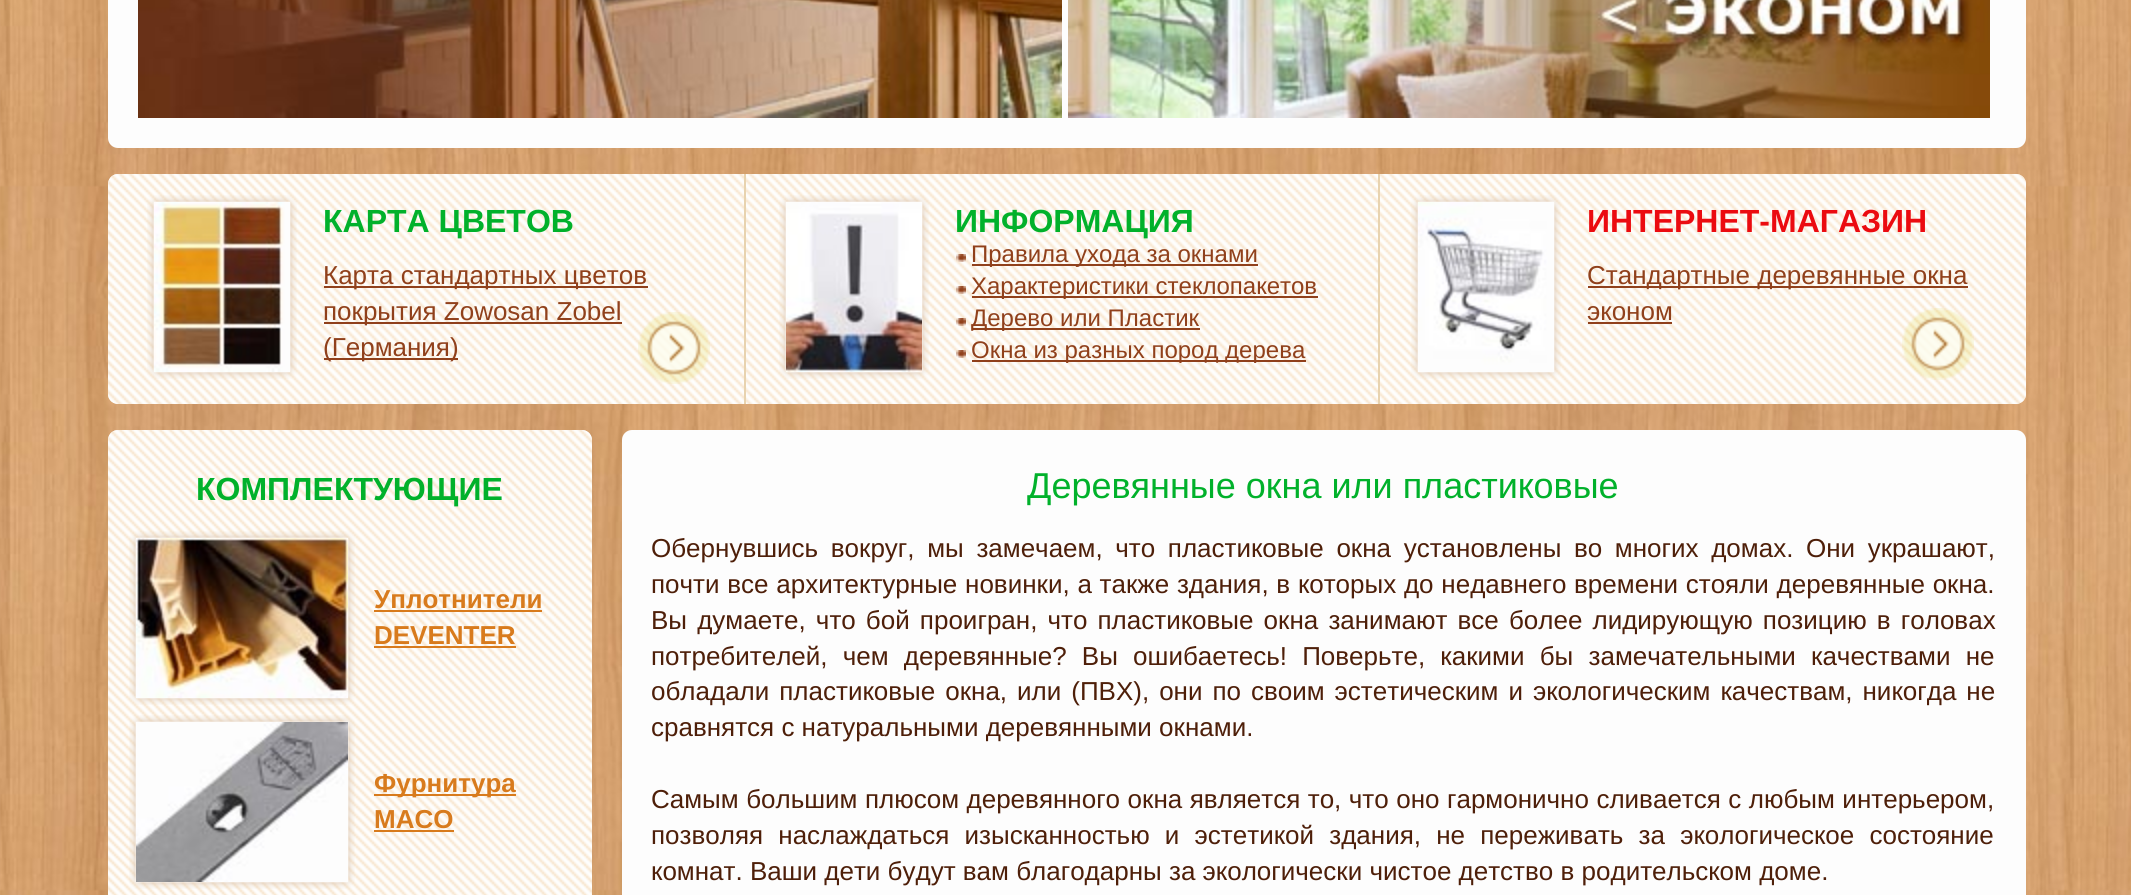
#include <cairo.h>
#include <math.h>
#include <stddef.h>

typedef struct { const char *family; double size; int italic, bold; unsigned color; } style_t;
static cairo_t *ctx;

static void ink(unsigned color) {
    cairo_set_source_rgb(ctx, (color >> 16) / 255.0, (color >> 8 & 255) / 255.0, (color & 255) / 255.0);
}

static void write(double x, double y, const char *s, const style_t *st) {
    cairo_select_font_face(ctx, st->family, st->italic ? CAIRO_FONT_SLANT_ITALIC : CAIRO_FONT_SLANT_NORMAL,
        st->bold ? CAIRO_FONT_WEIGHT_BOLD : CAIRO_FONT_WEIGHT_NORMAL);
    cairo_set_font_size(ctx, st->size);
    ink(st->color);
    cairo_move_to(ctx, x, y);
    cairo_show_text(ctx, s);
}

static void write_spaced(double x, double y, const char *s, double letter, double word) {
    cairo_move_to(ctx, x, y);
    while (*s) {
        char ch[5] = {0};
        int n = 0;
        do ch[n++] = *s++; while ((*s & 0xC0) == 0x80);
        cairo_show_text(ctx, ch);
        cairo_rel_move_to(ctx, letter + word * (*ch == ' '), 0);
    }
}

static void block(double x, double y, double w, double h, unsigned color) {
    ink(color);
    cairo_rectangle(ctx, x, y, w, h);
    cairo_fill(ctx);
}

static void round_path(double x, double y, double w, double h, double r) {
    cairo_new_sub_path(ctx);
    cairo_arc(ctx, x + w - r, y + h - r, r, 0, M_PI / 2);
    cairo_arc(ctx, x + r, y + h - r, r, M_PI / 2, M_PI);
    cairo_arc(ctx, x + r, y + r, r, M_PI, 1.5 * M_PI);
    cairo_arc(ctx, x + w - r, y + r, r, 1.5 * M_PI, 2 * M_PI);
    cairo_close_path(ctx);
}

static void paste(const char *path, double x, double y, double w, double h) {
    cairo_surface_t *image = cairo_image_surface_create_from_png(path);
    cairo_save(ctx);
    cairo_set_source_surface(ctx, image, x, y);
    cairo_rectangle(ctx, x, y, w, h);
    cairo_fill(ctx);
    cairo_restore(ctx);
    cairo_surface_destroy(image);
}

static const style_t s1 = {"Liberation Sans", 32, 0, 1, 0x01b12b};
static const style_t s2 = {"Liberation Sans", 26, 0, 0, 0x90401b};
static const style_t s3 = {"Liberation Sans", 24, 0, 0, 0x90401b};
static const style_t s4 = {"Liberation Sans", 32, 0, 1, 0xeb0b10};
static const style_t s5 = {"Liberation Sans", 26, 0, 1, 0xd87b1d};
static const style_t s6 = {"Liberation Sans", 36, 0, 0, 0x01b12b};
static const style_t s7 = {"Liberation Sans", 26, 0, 0, 0x4e1f09};

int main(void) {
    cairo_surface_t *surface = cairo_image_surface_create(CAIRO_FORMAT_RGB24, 2131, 895);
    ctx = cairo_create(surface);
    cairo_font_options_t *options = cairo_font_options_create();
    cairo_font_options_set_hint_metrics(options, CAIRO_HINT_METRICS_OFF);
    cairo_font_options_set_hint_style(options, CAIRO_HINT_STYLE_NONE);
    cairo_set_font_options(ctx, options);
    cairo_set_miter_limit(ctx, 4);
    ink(0xffffff);
    cairo_paint(ctx);
    paste("pic1.png", 0, 0, 2131, 895);
    ink(0xfdfdfd);
    round_path(108, -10, 1918, 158, 10);
    cairo_fill(ctx);
    paste("pic2.png", 138, 0, 924, 118);
    paste("pic3.png", 1068, 0, 922, 118);
    round_path(108, 174, 1918, 230, 10);
    cairo_fill(ctx);
    paste("pic4.png", 108, 174, 1918, 230);
    block(744, 174, 2, 230, 0xe8d3af);
    block(1378, 174, 2, 230, 0xe8d3af);
    paste("pic5.png", 147, 195, 150, 184);
    paste("pic6.png", 154, 202, 136, 170);
    write(323, 232, "КАРТА ЦВЕТОВ", &s1);
    block(324, 286, 324, 2, 0x90401b);
    write(323, 284, "Карта стандартных цветов", &s2);
    block(324, 322, 298, 2, 0x90401b);
    write(323, 320, "покрытия Zowosan Zobel", &s2);
    block(324, 358, 134, 2, 0x90401b);
    write(323, 356, "(Германия)", &s2);
    paste("pic7.png", 638, 312, 72, 72);
    paste("pic8.png", 779, 195, 150, 184);
    paste("pic9.png", 786, 202, 136, 170);
    write(955, 232, "ИНФОРМАЦИЯ", &s1);
    paste("pic10.png", 956, 254, 10, 8);
    block(972, 264, 286, 2, 0x90401b);
    write(971, 262, "Правила ухода за окнами", &s3);
    paste("pic11.png", 956, 286, 10, 8);
    block(972, 296, 346, 2, 0x90401b);
    write(971, 294, "Характеристики стеклопакетов", &s3);
    paste("pic12.png", 956, 318, 10, 8);
    block(972, 328, 228, 2, 0x90401b);
    write(971, 326, "Дерево или Пластик", &s3);
    paste("pic13.png", 956, 350, 10, 8);
    block(972, 360, 334, 2, 0x90401b);
    write(971, 358, "Окна из разных пород дерева", &s3);
    paste("pic14.png", 1411, 195, 150, 184);
    paste("pic15.png", 1418, 202, 136, 170);
    write(1587, 232, "ИНТЕРНЕТ-МАГАЗИН", &s4);
    block(1588, 286, 380, 2, 0x90401b);
    write(1587, 284, "Стандартные деревянные окна", &s2);
    write(1587, 320, "эконом", &s2);
    block(1588, 322, 84, 2, 0x90401b);
    paste("pic16.png", 1902, 308, 72, 72);
    ink(0xfdfdfd);
    round_path(108, 430, 484, 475, 10);
    cairo_fill(ctx);
    paste("pic17.png", 108, 430, 484, 465);
    write(196, 500, "КОМПЛЕКТУЮЩИЕ", &s1);
    paste("pic18.png", 129, 531, 226, 174);
    write(374, 608, "Уплотнители", &s5);
    block(374, 610, 168, 2, 0xd87b1d);
    write(374, 644, "DEVENTER", &s5);
    block(374, 646, 142, 2, 0xd87b1d);
    paste("pic19.png", 129, 715, 226, 174);
    block(374, 794, 142, 2, 0xd87b1d);
    write(374, 792, "Фурнитура", &s5);
    write(374, 828, "MACO", &s5);
    block(374, 830, 80, 2, 0xd87b1d);
    ink(0xfdfdfd);
    round_path(622, 430, 1404, 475, 10);
    cairo_fill(ctx);
    write(1027, 498, "Деревянные окна или пластиковые", &s6);
    cairo_set_font_size(ctx, 26);
    ink(0x4e1f09);
    write_spaced(651, 557, "Обернувшись вокруг, мы замечаем, что пластиковые окна установлены во многих домах. Они украшают,", 0, 5.4);
    write_spaced(651, 593, "почти все архитектурные новинки, а также здания, в которых до недавнего времени стояли деревянные окна.", 0, 0.5);
    write_spaced(651, 629, "Вы думаете, что бой проигран, что пластиковые окна занимают все более лидирующую позицию в головах", 0, 2.9);
    write_spaced(651, 665, "потребителей, чем деревянные? Вы ошибаетесь! Поверьте, какими бы замечательными качествами не", 0, 8);
    write_spaced(651, 700, "обладали пластиковые окна, или (ПВХ), они по своим эстетическим и экологическим качествам, никогда не", 0, 2.75);
    write(651, 736, "сравнятся с натуральными деревянными окнами.", &s7);
    write_spaced(651, 808, "Самым большим плюсом деревянного окна является то, что оно гармонично сливается с любым интерьером,", 0, 0.25);
    write_spaced(651, 844, "позволяя наслаждаться изысканностью и эстетикой здания, не переживать за экологическое состояние", 0, 8);
    write(651, 880, "комнат. Ваши дети будут вам благодарны за экологически чистое детство в родительском доме.", &s7);
    cairo_surface_write_to_png(surface, "screenshot.png");
    cairo_font_options_destroy(options);
    cairo_destroy(ctx);
    cairo_surface_destroy(surface);
    return 0;
}
